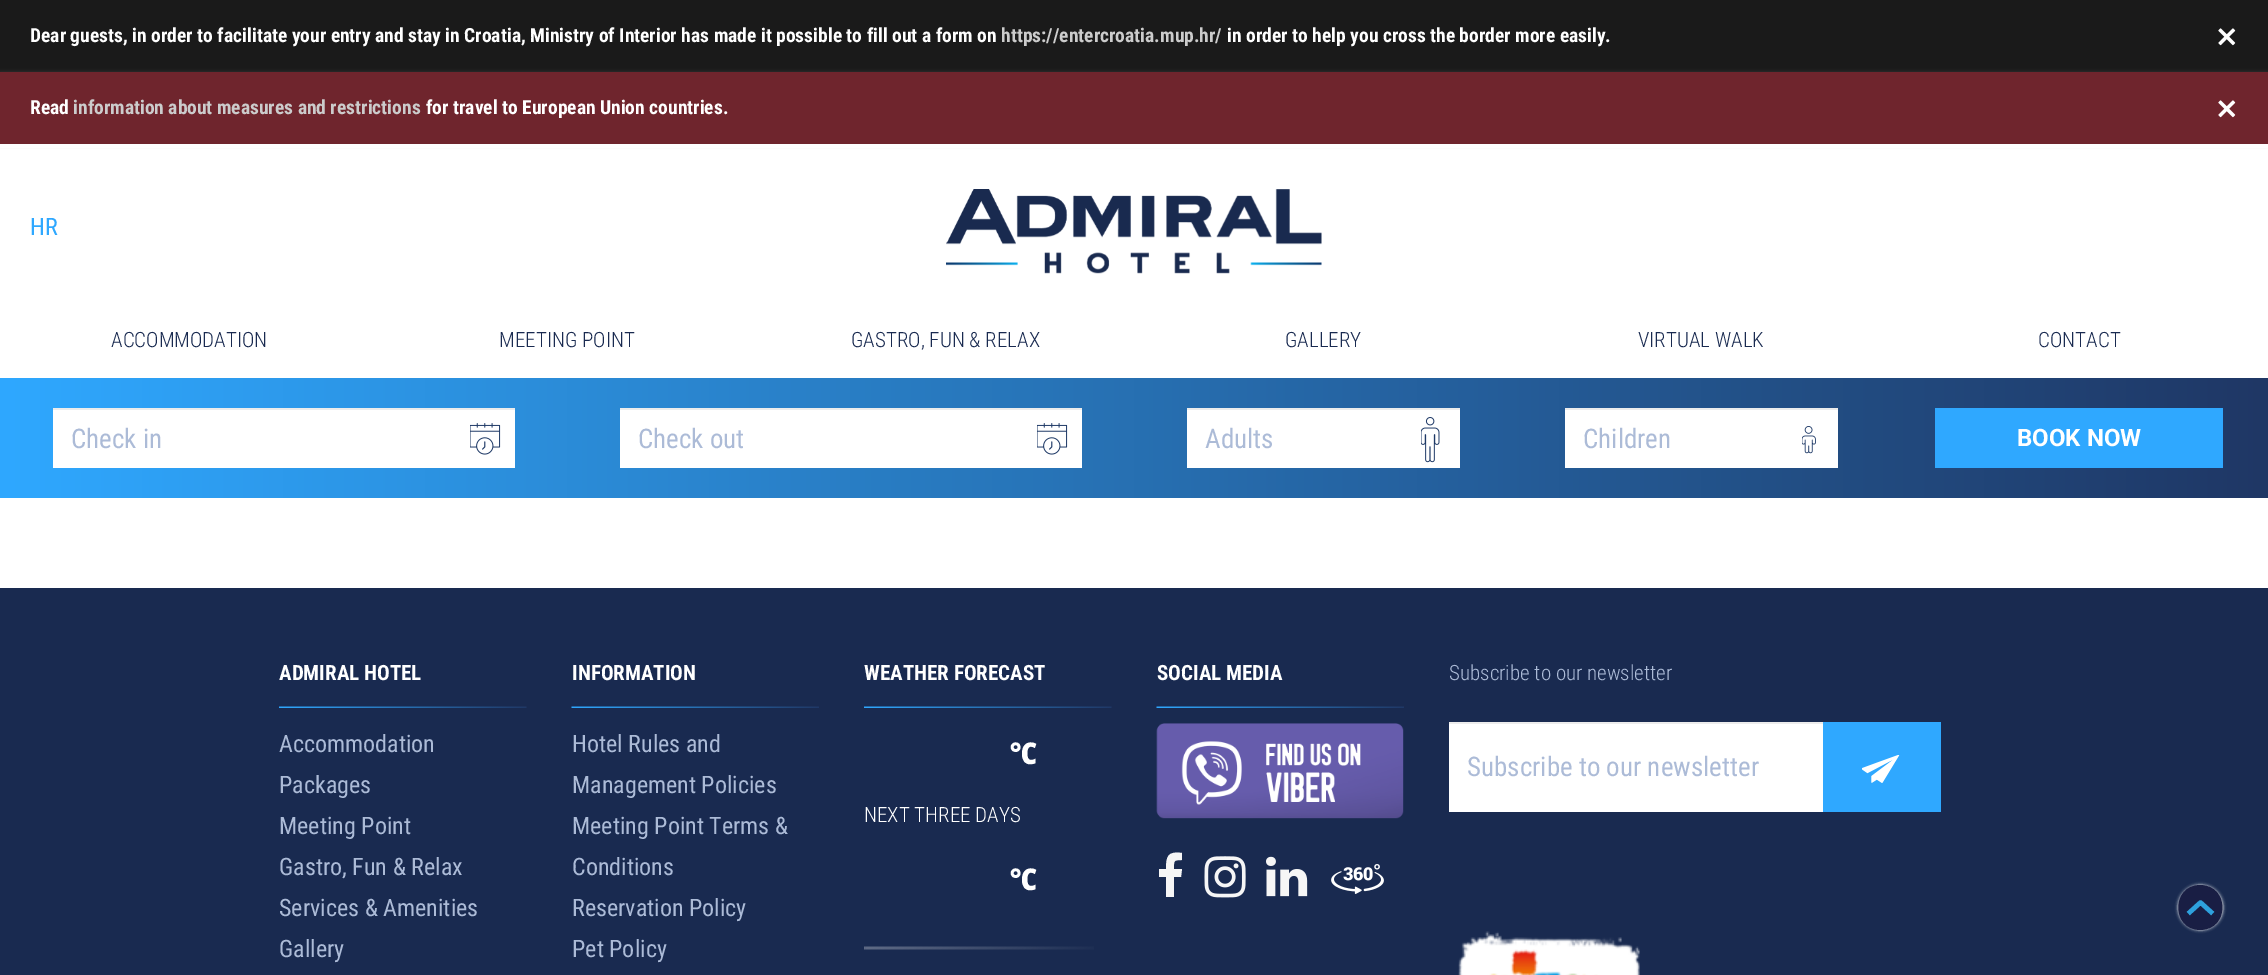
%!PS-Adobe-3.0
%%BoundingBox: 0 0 2268 975
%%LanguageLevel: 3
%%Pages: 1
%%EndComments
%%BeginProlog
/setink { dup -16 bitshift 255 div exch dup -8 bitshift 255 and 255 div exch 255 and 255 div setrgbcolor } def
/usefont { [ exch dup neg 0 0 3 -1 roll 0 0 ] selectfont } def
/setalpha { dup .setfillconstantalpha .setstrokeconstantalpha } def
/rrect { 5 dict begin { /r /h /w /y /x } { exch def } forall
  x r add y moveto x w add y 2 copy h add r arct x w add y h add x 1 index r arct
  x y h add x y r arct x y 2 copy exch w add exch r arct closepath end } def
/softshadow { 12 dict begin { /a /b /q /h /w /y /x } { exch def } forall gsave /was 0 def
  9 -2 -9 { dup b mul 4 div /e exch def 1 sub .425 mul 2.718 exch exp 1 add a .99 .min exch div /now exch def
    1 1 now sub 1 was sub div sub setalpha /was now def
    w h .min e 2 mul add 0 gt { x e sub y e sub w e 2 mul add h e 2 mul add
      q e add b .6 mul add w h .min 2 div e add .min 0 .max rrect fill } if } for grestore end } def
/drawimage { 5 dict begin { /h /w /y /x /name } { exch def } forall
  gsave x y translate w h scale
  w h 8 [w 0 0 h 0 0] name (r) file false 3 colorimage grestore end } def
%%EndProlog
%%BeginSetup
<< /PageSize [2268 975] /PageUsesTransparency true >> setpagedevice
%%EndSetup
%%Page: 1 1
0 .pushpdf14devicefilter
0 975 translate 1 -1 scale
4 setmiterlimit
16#FFFFFF setink
0 0 2268 975 rectfill
16#1A1A1A setink
0 0 2268 72 rectfill
/RobotoCondensed-Bold 19.5 usefont
16#FFFFFF setink
30 42 moveto (Dear guests, in order to facilitate your entry and stay in Croatia, Ministry of Interior has made it possible to fill out a form on) show
16#CCCCCC setink
1001 42 moveto (https://entercroatia.mup.hr/) show
16#FFFFFF setink
1227 42 moveto (in order to help you cross the border more easily.) show
(img1.raw) 2218 28 18 18 drawimage
16#333333 setink
0 72 2268 72 0 2 1 softshadow
16#6F252D setink
0 72 2268 72 rectfill
16#FFFFFF setink
30 114 moveto (Read) show
16#CCCCCC setink
73 114 moveto (information about measures and restrictions) show
16#FFFFFF setink
426 114 moveto (for travel to European Union countries.) show
(img2.raw) 2218 100 18 18 drawimage
0 144 2268 4 rectfill
/RobotoCondensed-Regular 24 usefont
16#2FA8FF setink
30 235 moveto (HR) show
(img3.raw) 946 189 376 85 drawimage
/RobotoCondensed-Light 21 usefont
16#192A50 setink
[
    [(ACCOMMODATION) 111 347]
    [(MEETING POINT) 499 347]
    [(GASTRO, FUN & RELAX) 851 347]
    [(GALLERY) 1285 347]
    [(VIRTUAL WALK) 1638 347]
    [(CONTACT) 2038 347]
] { aload pop moveto show } forall
gsave 0 378 moveto 2268 378 lineto 2268 498 lineto 0 498 lineto closepath clip newpath
<< /ShadingType 2 /ColorSpace /DeviceRGB /Coords [0 438 2268 438] /Extend [true true] /Function << /FunctionType 2 /Domain [0 1] /C0 [0.184 0.659 1] /C1 [0.122 0.216 0.396] /N 1 >> >> shfill grestore
16#FFFFFF setink
53 410 462 58 rectfill
16#ECECEC setink
53 408 462 2 rectfill
/RobotoCondensed-Regular 27 usefont
16#ACBBD7 setink
71 448 moveto (Check in) show
(img4.raw) 470 423 31 32 drawimage
16#FFFFFF setink
620 410 462 58 rectfill
16#ECECEC setink
620 408 462 2 rectfill
16#ACBBD7 setink
638 448 moveto (Check out) show
(img4.raw) 1037 423 31 32 drawimage
16#FFFFFF setink
1187 410 273 58 rectfill
16#ECECEC setink
1187 408 273 2 rectfill
16#ACBBD7 setink
1205 448 moveto (Adults) show
(img5.raw) 1421 417 19 46 drawimage
16#FFFFFF setink
1565 410 273 58 rectfill
16#ECECEC setink
1565 408 273 2 rectfill
16#ACBBD7 setink
1583 448 moveto (Children) show
(img6.raw) 1802 426 14 28 drawimage
16#2FA8FF setink
1935 408 288 60 rectfill
/Roboto-Bold 24 usefont
16#FFFFFF setink
2017 446 moveto (BOOK NOW) show
16#192A50 setink
0 588 2268 387 rectfill
(img7.raw) 279 706 248 2 drawimage
/RobotoCondensed-Bold 21 usefont
16#FFFFFF setink
279 680 moveto (ADMIRAL HOTEL) show
/RobotoCondensed-Regular 24 usefont
16#ACBBD7 setink
[
    [(Accommodation) 279 752]
    [(Packages) 279 793]
    [(Meeting Point) 279 834]
    [(Gastro, Fun & Relax) 279 875]
    [(Services & Amenities) 279 916]
    [(Gallery) 279 957]
] { aload pop moveto show } forall
(img8.raw) 571 706 248 2 drawimage
/RobotoCondensed-Bold 21 usefont
16#FFFFFF setink
572 680 moveto (INFORMATION) show
/RobotoCondensed-Regular 24 usefont
16#ACBBD7 setink
[
    [(Hotel Rules and) 572 752]
    [(Management Policies) 572 793]
    [(Meeting Point Terms &) 572 834]
    [(Conditions) 572 875]
    [(Reservation Policy) 572 916]
    [(Pet Policy) 572 957]
] { aload pop moveto show } forall
(img9.raw) 864 706 248 2 drawimage
/RobotoCondensed-Bold 21 usefont
16#FFFFFF setink
864 680 moveto (WEATHER FORECAST) show
/NotoSans-Black 30 usefont
1010 764 moveto (℃) show
/RobotoCondensed-Light 21 usefont
864 822 moveto (NEXT THREE DAYS) show
/NotoSans-Black 30 usefont
1010 890 moveto (℃) show
(img10.raw) 864 946 230 4 drawimage
(img11.raw) 1156 706 248 2 drawimage
/RobotoCondensed-Bold 21 usefont
1157 680 moveto (SOCIAL MEDIA) show
(img12.raw) 1156 723 248 96 drawimage
16#F6F6F6 setink
1182 853 moveto 1182 860 lineto 1173 860 1174 861 1174 869 curveto 1182 869 lineto 1181 877 lineto 1174 877 lineto 1174 897 lineto 1166 897 lineto 1166 877 lineto 1159 877 lineto 1159 869 lineto 1166 869 lineto 1166 856 1168 851 1182 853 curveto closepath fill
(img13.raw) 1204 856 42 42 drawimage
(img14.raw) 1266 856 42 41 drawimage
(img15.raw) 1331 864 53 30 drawimage
/RobotoCondensed-Light 21 usefont
16#ACBBD7 setink
1449 680 moveto (Subscribe to our newsletter) show
16#FFFFFF setink
1449 724 374 88 rectfill
16#ECECEC setink
1449 722 374 2 rectfill
/RobotoCondensed-Regular 27 usefont
16#ACBBD7 setink
1467 776 moveto (Subscribe to our newsletter) show
16#2FA8FF setink
1823 722 118 90 rectfill
(img16.raw) 1862 755 38 28 drawimage
(img17.raw) 1458 931 182 44 drawimage
16#FFFFFF setink
2178 885 45 45 22.5 1.5 1 softshadow
16#191E44 setink
2200 930 moveto 2171 930 2171 885 2200 885 curveto 2230 885 2230 930 2200 930 curveto closepath fill
16#2EA1DD setink
4.5 setlinewidth
2 setlinecap
1 setlinejoin
2190 912 moveto 2200.5 902.5 lineto 2211 912 lineto stroke
.poppdf14devicefilter showpage
%%EOF
